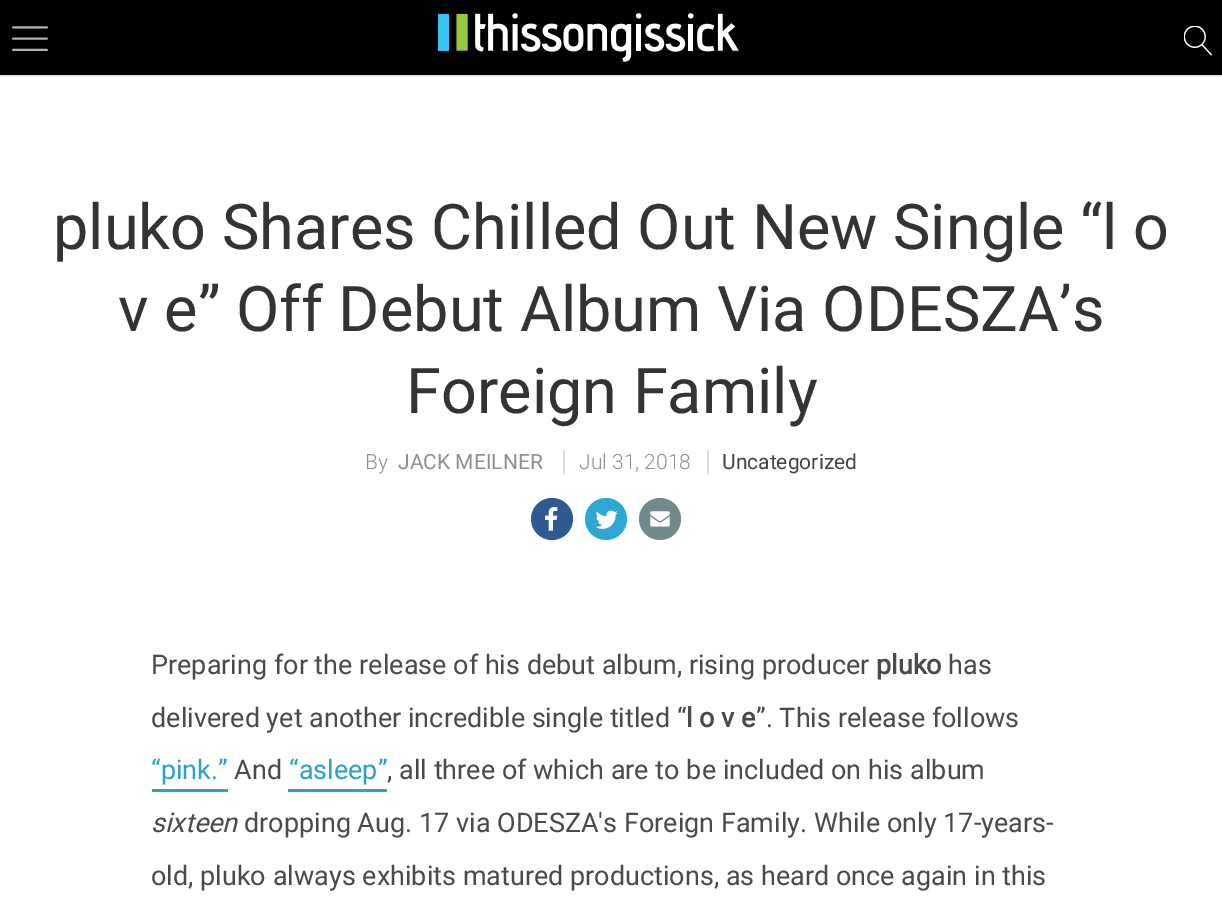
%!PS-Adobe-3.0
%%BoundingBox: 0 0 1222 920
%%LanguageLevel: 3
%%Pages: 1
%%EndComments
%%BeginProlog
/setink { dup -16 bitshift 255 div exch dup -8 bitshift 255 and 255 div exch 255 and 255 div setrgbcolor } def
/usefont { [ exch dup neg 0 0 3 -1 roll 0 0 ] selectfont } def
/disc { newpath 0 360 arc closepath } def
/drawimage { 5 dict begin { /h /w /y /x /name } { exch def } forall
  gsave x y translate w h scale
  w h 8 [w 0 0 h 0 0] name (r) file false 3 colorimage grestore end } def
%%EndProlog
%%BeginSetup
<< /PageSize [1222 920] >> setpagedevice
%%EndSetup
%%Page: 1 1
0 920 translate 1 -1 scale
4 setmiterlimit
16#FFFFFF setink
0 0 1222 920 rectfill
16#000000 setink
0 0 1222 75 rectfill
16#E7E7E7 setink
0 75 1222 2 rectfill
(img1.raw) 12 26 36 25 drawimage
(img2.raw) 438 13 301 49 drawimage
(img3.raw) 1184 26 28 30 drawimage
/Roboto-Regular 63 usefont
16#333333 setink
[
    [(pluko Shares Chilled Out New Single “l o) 53 249]
    [(v e” Off Debut Album Via ODESZA’s) 118 331]
    [(Foreign Family) 406 413]
] { aload pop moveto show } forall
/Roboto-Light 21 usefont
16#909090 setink
365 469 moveto (By) show
/Roboto-Regular 21 usefont
398 469 moveto (JACK MEILNER) show
16#DEDEDE setink
563 450 2 24 rectfill
/Roboto-Light 21 usefont
16#909090 setink
579 469 moveto (Jul 31, 2018) show
16#DEDEDE setink
707 450 2 24 rectfill
/Roboto-Regular 21 usefont
16#444444 setink
722 469 moveto (Uncategorized) show
16#305891 setink
552 519 21 disc fill
(img4.raw) 545 507 13 24 drawimage
16#2CA8D2 setink
606 519 21 disc fill
(img5.raw) 595 510 23 19 drawimage
16#738A8D setink
660 519 21 disc fill
(img6.raw) 650 511 20 16 drawimage
/Roboto-Regular 27 usefont
16#4A4A4A setink
151 674 moveto (Preparing for the release of his debut album, rising producer) show
/Roboto-Bold 27 usefont
876 674 moveto (pluko) show
/Roboto-Regular 27 usefont
948 674 moveto (has) show
151 727 moveto (delivered yet another incredible single titled “) show
/Roboto-Bold 27 usefont
686 727 moveto (l o v e) show
/Roboto-Regular 27 usefont
756 727 moveto (”. This release follows) show
16#2DA2C8 setink
151 779 moveto (“pink.”) show
152 789 76 3 rectfill
16#4A4A4A setink
234 779 moveto (And) show
16#2DA2C8 setink
289 779 moveto (“asleep”) show
288 789 99 3 rectfill
16#4A4A4A setink
387 779 moveto (, all three of which are to be included on his album) show
/Roboto-Italic 27 usefont
151 832 moveto (sixteen) show
/Roboto-Regular 27 usefont
244 832 moveto (dropping Aug. 17 via ODESZA's Foreign Family. While only 17-years-) show
151 885 moveto (old, pluko always exhibits matured productions, as heard once again in this) show
showpage
%%EOF
